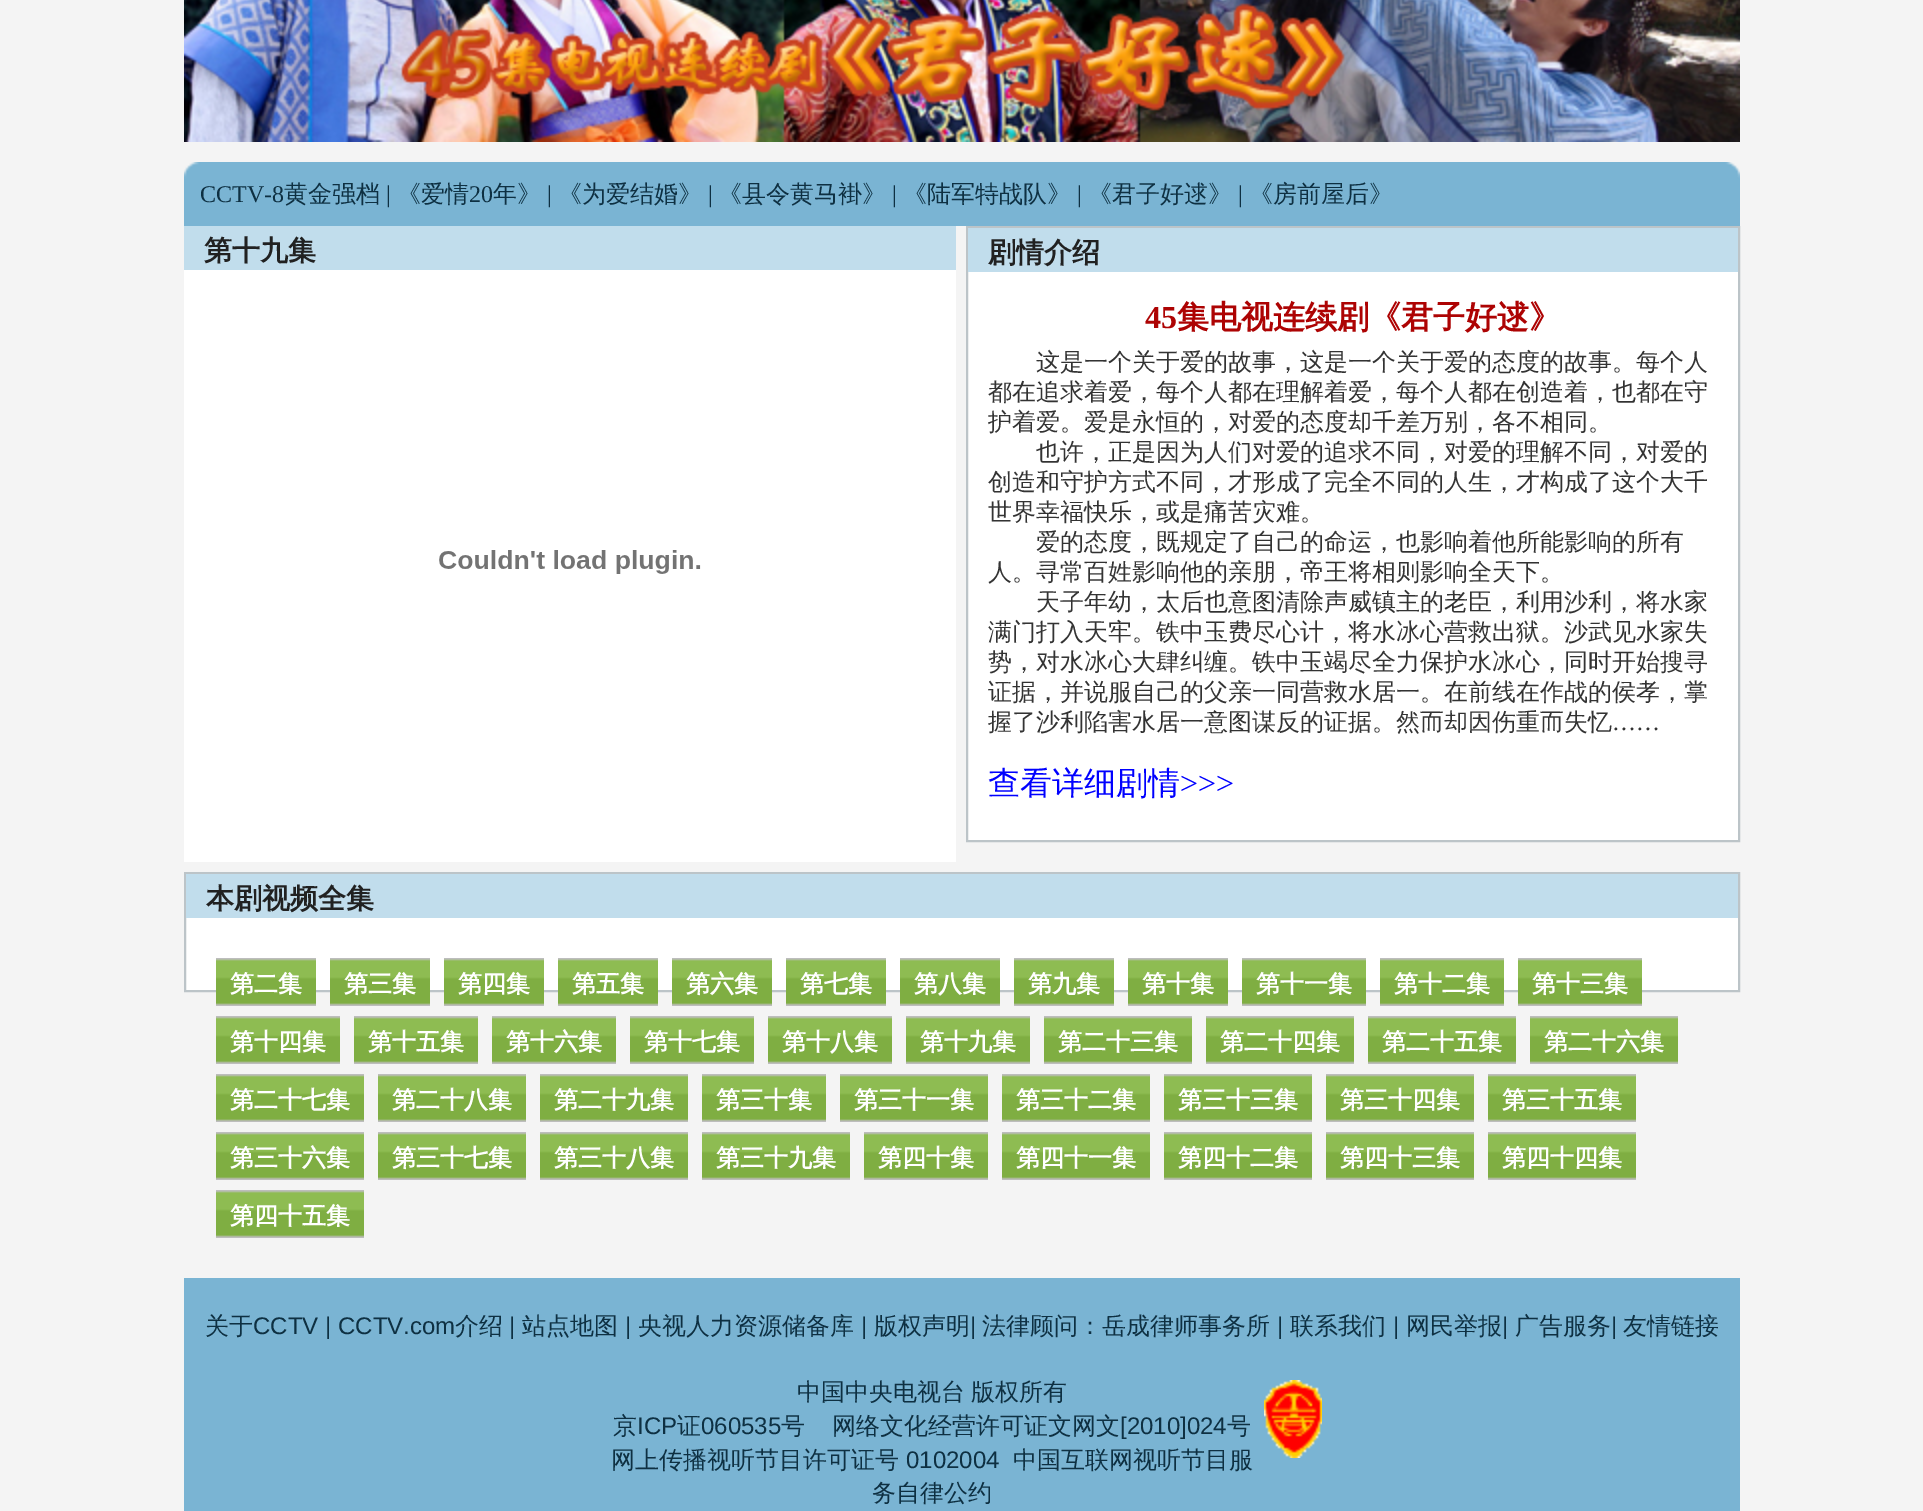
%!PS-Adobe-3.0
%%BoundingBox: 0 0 1923 1511
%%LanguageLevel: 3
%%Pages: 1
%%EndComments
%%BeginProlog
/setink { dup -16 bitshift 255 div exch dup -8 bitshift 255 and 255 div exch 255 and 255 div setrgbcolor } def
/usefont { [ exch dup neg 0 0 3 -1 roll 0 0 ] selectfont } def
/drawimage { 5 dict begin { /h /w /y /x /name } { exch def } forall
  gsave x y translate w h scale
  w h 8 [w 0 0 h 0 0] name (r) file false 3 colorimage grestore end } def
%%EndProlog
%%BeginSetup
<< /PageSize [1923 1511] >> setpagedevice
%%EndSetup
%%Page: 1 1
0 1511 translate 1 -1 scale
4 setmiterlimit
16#F4F4F4 setink
0 0 1923 1511 rectfill
(img1.raw) 184 0 1556 142 drawimage
(img2.raw) 184 162 1556 64 drawimage
/LiberationSerif-Regular 24 usefont
16#0E3042 setink
200 202 moveto (CCTV-8) show
/WenQuanYiZenHei-Medium 24 usefont
284 202 moveto (黄金强档) show
/LiberationSerif-Regular 24 usefont
386 202 moveto (|) show
/WenQuanYiZenHei-Medium 24 usefont
397 202 moveto (《爱情) show
/LiberationSerif-Regular 24 usefont
469 202 moveto (20) show
/WenQuanYiZenHei-Medium 24 usefont
493 202 moveto (年》) show
/LiberationSerif-Regular 24 usefont
547 202 moveto (|) show
/WenQuanYiZenHei-Medium 24 usefont
558 202 moveto (《为爱结婚》) show
/LiberationSerif-Regular 24 usefont
708 202 moveto (|) show
/WenQuanYiZenHei-Medium 24 usefont
718 202 moveto (《县令黄马褂》) show
/LiberationSerif-Regular 24 usefont
892 202 moveto (|) show
/WenQuanYiZenHei-Medium 24 usefont
903 202 moveto (《陆军特战队》) show
/LiberationSerif-Regular 24 usefont
1077 202 moveto (|) show
/WenQuanYiZenHei-Medium 24 usefont
1088 202 moveto (《君子好逑》) show
/LiberationSerif-Regular 24 usefont
1238 202 moveto (|) show
/WenQuanYiZenHei-Medium 24 usefont
1249 202 moveto (《房前屋后》) show
16#FFFFFF setink
184 270 772 592 rectfill
16#C1DDEC setink
184 226 772 44 rectfill
/WenQuanYiZenHei-Bold 28 usefont
16#212121 setink
204 260 moveto (第十九集) show
(img3.raw) 439 550 262 24 drawimage
16#FFFFFF setink
968 272 770 568 rectfill
16#BCC4C8 setink
2 setlinewidth
967 227 772 614 rectstroke
16#C1DDEC setink
968 228 770 44 rectfill
16#212121 setink
988 262 moveto (剧情介绍) show
/LiberationSerif-Bold 32 usefont
16#AD0303 setink
1145 328 moveto (45) show
/WenQuanYiZenHei-Bold 32 usefont
1177 328 moveto (集电视连续剧《君子好逑》) show
/WenQuanYiZenHei-Medium 24 usefont
16#333333 setink
[
    [(这是一个关于爱的故事，这是一个关于爱的态度的故事。每个人) 1036 370]
    [(都在追求着爱，每个人都在理解着爱，每个人都在创造着，也都在守) 988 400]
    [(护着爱。爱是永恒的，对爱的态度却千差万别，各不相同。) 988 430]
    [(也许，正是因为人们对爱的追求不同，对爱的理解不同，对爱的) 1036 460]
    [(创造和守护方式不同，才形成了完全不同的人生，才构成了这个大千) 988 490]
    [(世界幸福快乐，或是痛苦灾难。) 988 520]
    [(爱的态度，既规定了自己的命运，也影响着他所能影响的所有) 1036 550]
    [(人。寻常百姓影响他的亲朋，帝王将相则影响全天下。) 988 580]
    [(天子年幼，太后也意图清除声威镇主的老臣，利用沙利，将水家) 1036 610]
    [(满门打入天牢。铁中玉费尽心计，将水冰心营救出狱。沙武见水家失) 988 640]
    [(势，对水冰心大肆纠缠。铁中玉竭尽全力保护水冰心，同时开始搜寻) 988 670]
    [(证据，并说服自己的父亲一同营救水居一。在前线在作战的侯孝，掌) 988 700]
    [(握了沙利陷害水居一意图谋反的证据。然而却因伤重而失忆) 988 730]
] { aload pop moveto show } forall
/LiberationSerif-Regular 24 usefont
1612 730 moveto (……) show
/WenQuanYiZenHei-Medium 32 usefont
16#0000FF setink
988 794 moveto (查看详细剧情) show
/LiberationSerif-Regular 32 usefont
1180 794 moveto (>>>) show
16#FFFFFF setink
186 918 1552 72 rectfill
16#BCC4C8 setink
185 873 1554 118 rectstroke
16#C1DDEC setink
186 874 1552 44 rectfill
/WenQuanYiZenHei-Bold 28 usefont
16#212121 setink
206 908 moveto (本剧视频全集) show
(img4.raw) 216 958 100 48 drawimage
/WenQuanYiZenHei-Bold 24 usefont
16#FFFFFF setink
230 992 moveto (第二集) show
(img4.raw) 330 958 100 48 drawimage
344 992 moveto (第三集) show
(img4.raw) 444 958 100 48 drawimage
458 992 moveto (第四集) show
(img4.raw) 558 958 100 48 drawimage
572 992 moveto (第五集) show
(img4.raw) 672 958 100 48 drawimage
686 992 moveto (第六集) show
(img4.raw) 786 958 100 48 drawimage
800 992 moveto (第七集) show
(img4.raw) 900 958 100 48 drawimage
914 992 moveto (第八集) show
(img4.raw) 1014 958 100 48 drawimage
1028 992 moveto (第九集) show
(img4.raw) 1128 958 100 48 drawimage
1142 992 moveto (第十集) show
(img5.raw) 1242 958 124 48 drawimage
1256 992 moveto (第十一集) show
(img5.raw) 1380 958 124 48 drawimage
1394 992 moveto (第十二集) show
(img5.raw) 1518 958 124 48 drawimage
1532 992 moveto (第十三集) show
(img5.raw) 216 1016 124 48 drawimage
230 1050 moveto (第十四集) show
(img5.raw) 354 1016 124 48 drawimage
368 1050 moveto (第十五集) show
(img5.raw) 492 1016 124 48 drawimage
506 1050 moveto (第十六集) show
(img5.raw) 630 1016 124 48 drawimage
644 1050 moveto (第十七集) show
(img5.raw) 768 1016 124 48 drawimage
782 1050 moveto (第十八集) show
(img5.raw) 906 1016 124 48 drawimage
920 1050 moveto (第十九集) show
(img6.raw) 1044 1016 148 48 drawimage
1058 1050 moveto (第二十三集) show
(img6.raw) 1206 1016 148 48 drawimage
1220 1050 moveto (第二十四集) show
(img6.raw) 1368 1016 148 48 drawimage
1382 1050 moveto (第二十五集) show
(img6.raw) 1530 1016 148 48 drawimage
1544 1050 moveto (第二十六集) show
(img6.raw) 216 1074 148 48 drawimage
230 1108 moveto (第二十七集) show
(img6.raw) 378 1074 148 48 drawimage
392 1108 moveto (第二十八集) show
(img6.raw) 540 1074 148 48 drawimage
554 1108 moveto (第二十九集) show
(img5.raw) 702 1074 124 48 drawimage
716 1108 moveto (第三十集) show
(img6.raw) 840 1074 148 48 drawimage
854 1108 moveto (第三十一集) show
(img6.raw) 1002 1074 148 48 drawimage
1016 1108 moveto (第三十二集) show
(img6.raw) 1164 1074 148 48 drawimage
1178 1108 moveto (第三十三集) show
(img6.raw) 1326 1074 148 48 drawimage
1340 1108 moveto (第三十四集) show
(img6.raw) 1488 1074 148 48 drawimage
1502 1108 moveto (第三十五集) show
(img6.raw) 216 1132 148 48 drawimage
230 1166 moveto (第三十六集) show
(img6.raw) 378 1132 148 48 drawimage
392 1166 moveto (第三十七集) show
(img6.raw) 540 1132 148 48 drawimage
554 1166 moveto (第三十八集) show
(img6.raw) 702 1132 148 48 drawimage
716 1166 moveto (第三十九集) show
(img5.raw) 864 1132 124 48 drawimage
878 1166 moveto (第四十集) show
(img6.raw) 1002 1132 148 48 drawimage
1016 1166 moveto (第四十一集) show
(img6.raw) 1164 1132 148 48 drawimage
1178 1166 moveto (第四十二集) show
(img6.raw) 1326 1132 148 48 drawimage
1340 1166 moveto (第四十三集) show
(img6.raw) 1488 1132 148 48 drawimage
1502 1166 moveto (第四十四集) show
(img6.raw) 216 1190 148 48 drawimage
230 1224 moveto (第四十五集) show
16#7AB4D3 setink
184 1278 1556 233 rectfill
/WenQuanYiZenHei-Medium 24 usefont
16#0E3042 setink
205 1334 moveto (关于) show
/LiberationSans-Regular 24 usefont
253 1334 moveto (CCTV | CCTV.com) show
/WenQuanYiZenHei-Medium 24 usefont
455 1334 moveto (介绍) show
/LiberationSans-Regular 24 usefont
509 1334 moveto (|) show
/WenQuanYiZenHei-Medium 24 usefont
522 1334 moveto (站点地图) show
/LiberationSans-Regular 24 usefont
625 1334 moveto (|) show
/WenQuanYiZenHei-Medium 24 usefont
638 1334 moveto (央视人力资源储备库) show
/LiberationSans-Regular 24 usefont
861 1334 moveto (|) show
/WenQuanYiZenHei-Medium 24 usefont
874 1334 moveto (版权声明) show
/LiberationSans-Regular 24 usefont
970 1334 moveto (|) show
/WenQuanYiZenHei-Medium 24 usefont
982 1334 moveto (法律顾问：岳成律师事务所) show
/LiberationSans-Regular 24 usefont
1277 1334 moveto (|) show
/WenQuanYiZenHei-Medium 24 usefont
1290 1334 moveto (联系我们) show
/LiberationSans-Regular 24 usefont
1393 1334 moveto (|) show
/WenQuanYiZenHei-Medium 24 usefont
1406 1334 moveto (网民举报) show
/LiberationSans-Regular 24 usefont
1502 1334 moveto (|) show
/WenQuanYiZenHei-Medium 24 usefont
1515 1334 moveto (广告服务) show
/LiberationSans-Regular 24 usefont
1611 1334 moveto (|) show
/WenQuanYiZenHei-Medium 24 usefont
1623 1334 moveto (友情链接) show
797 1400 moveto -1 0 32 (中国中央电视台 版权所有) widthshow
613 1434 moveto (京) show
/LiberationSans-Regular 24 usefont
637 1434 moveto (ICP) show
/WenQuanYiZenHei-Medium 24 usefont
677 1434 moveto (证) show
/LiberationSans-Regular 24 usefont
701 1434 moveto (060535) show
/WenQuanYiZenHei-Medium 24 usefont
781 1434 moveto (号) show
832 1434 moveto (网络文化经营许可证文网文) show
/LiberationSans-Regular 24 usefont
1120 1434 moveto ([2010]024) show
/WenQuanYiZenHei-Medium 24 usefont
1227 1434 moveto (号) show
611 1468 moveto (网上传播视听节目许可证号) show
/LiberationSans-Regular 24 usefont
906 1468 moveto (0102004) show
/WenQuanYiZenHei-Medium 24 usefont
1013 1468 moveto (中国互联网视听节目服) show
872 1501 moveto (务自律公约) show
(img7.raw) 1264 1380 58 78 drawimage
showpage
%%EOF
